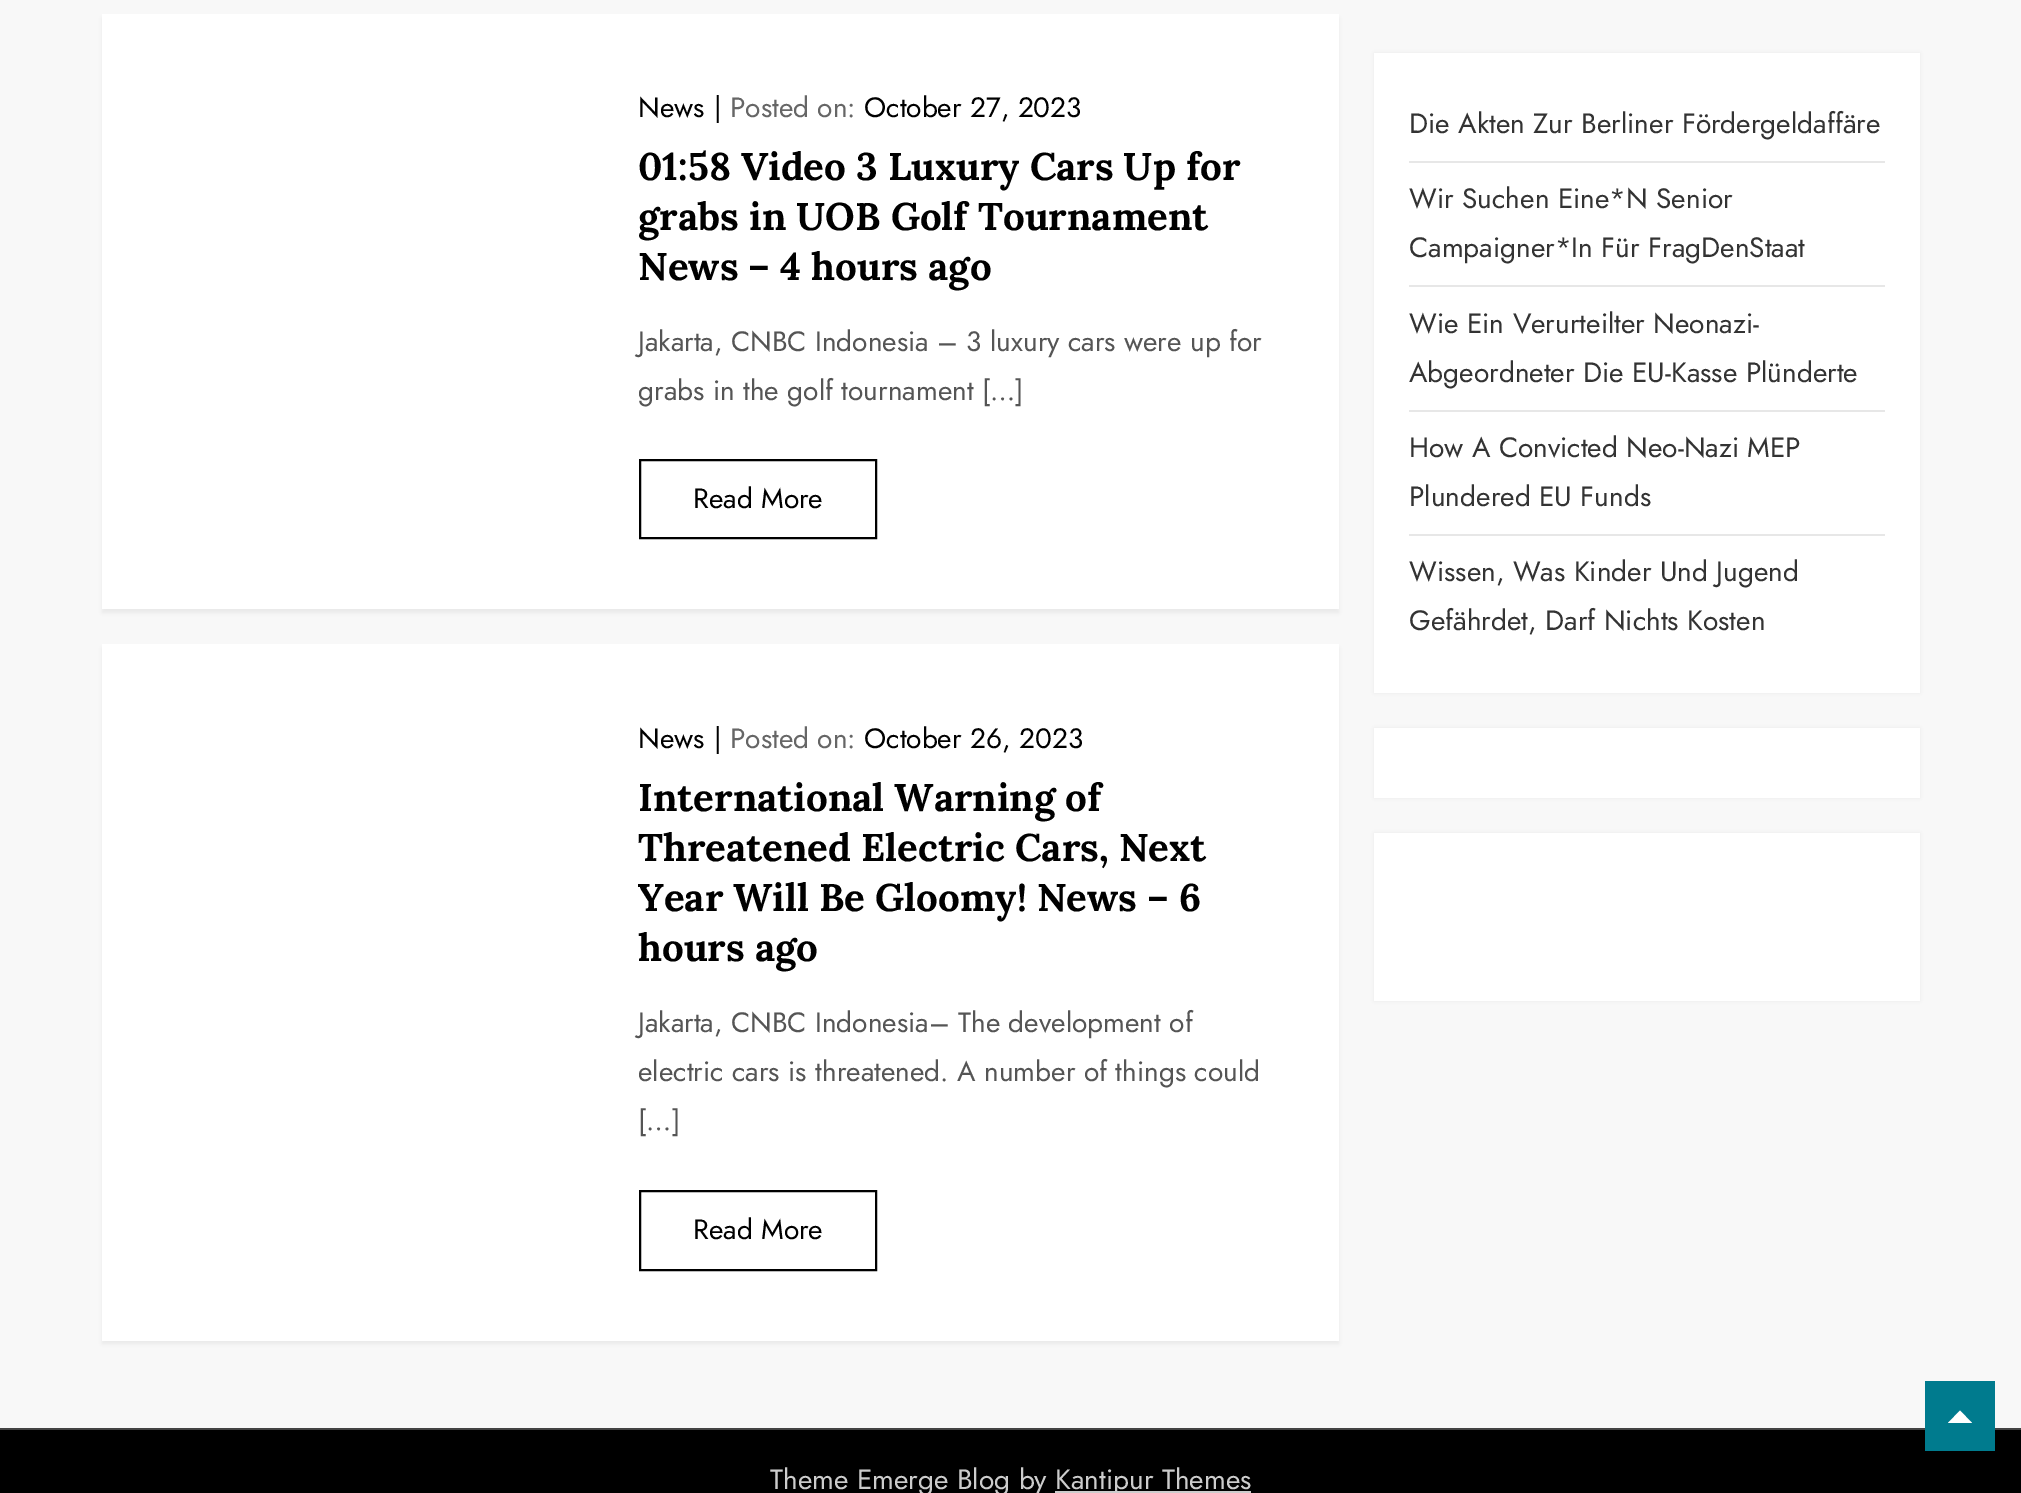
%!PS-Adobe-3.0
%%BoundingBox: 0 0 2021 1493
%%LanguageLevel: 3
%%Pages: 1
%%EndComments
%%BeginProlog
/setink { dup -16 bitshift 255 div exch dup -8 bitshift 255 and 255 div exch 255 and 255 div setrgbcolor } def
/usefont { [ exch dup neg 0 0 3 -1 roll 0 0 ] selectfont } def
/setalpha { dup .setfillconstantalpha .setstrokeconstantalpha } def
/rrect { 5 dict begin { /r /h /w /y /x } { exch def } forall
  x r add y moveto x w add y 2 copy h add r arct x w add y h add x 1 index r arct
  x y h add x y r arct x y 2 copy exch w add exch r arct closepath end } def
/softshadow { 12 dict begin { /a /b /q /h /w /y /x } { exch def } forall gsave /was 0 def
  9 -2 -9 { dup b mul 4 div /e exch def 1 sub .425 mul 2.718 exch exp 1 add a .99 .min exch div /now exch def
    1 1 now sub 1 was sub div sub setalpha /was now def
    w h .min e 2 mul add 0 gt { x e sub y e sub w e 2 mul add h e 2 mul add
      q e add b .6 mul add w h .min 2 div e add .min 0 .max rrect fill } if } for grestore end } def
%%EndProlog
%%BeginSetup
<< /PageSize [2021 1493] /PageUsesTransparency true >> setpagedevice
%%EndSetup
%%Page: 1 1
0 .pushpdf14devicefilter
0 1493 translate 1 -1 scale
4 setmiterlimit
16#F8F8F8 setink
0 0 2021 1493 rectfill
16#000000 setink
102 18 1237 595 0 2 0.06 softshadow
16#FFFFFF setink
102 14 1237 595 rectfill
/Jost-Regular 28 usefont
16#000000 setink
638 117 moveto (News) show
714 117 moveto (|) show
16#666666 setink
730 117 moveto (Posted on:) show
16#000000 setink
864 117 moveto (October 27, 2023) show
/Lora-Bold 38.5 usefont
[
    [(01:58 Video 3 Luxury Cars Up for) 638 180]
    [(grabs in UOB Golf Tournament) 638 230]
    [(News – 4 hours ago) 638 280]
] { aload pop moveto show } forall
/Jost-Regular 28 usefont
16#555555 setink
638 351 moveto (Jakarta, CNBC Indonesia – 3 luxury cars were up for) show
638 400 moveto (grabs in the golf tournament […]) show
16#000000 setink
2 setlinewidth
640 460 236 78 rectstroke
693 508 moveto (Read More) show
102 648 1237 696 0 2 0.06 softshadow
16#FFFFFF setink
102 644 1237 697 rectfill
16#000000 setink
638 748 moveto (News) show
714 748 moveto (|) show
16#666666 setink
730 748 moveto (Posted on:) show
16#000000 setink
864 748 moveto (October 26, 2023) show
/Lora-Bold 38.5 usefont
[
    [(International Warning of) 638 811]
    [(Threatened Electric Cars, Next) 638 861]
    [(Year Will Be Gloomy! News – 6) 638 911]
    [(hours ago) 638 961]
] { aload pop moveto show } forall
/Jost-Regular 28 usefont
16#555555 setink
[
    [(Jakarta, CNBC Indonesia– The development of) 638 1032]
    [(electric cars is threatened. A number of things could) 638 1081]
    [([…]) 638 1130]
] { aload pop moveto show } forall
16#000000 setink
640 1191 236 79 rectstroke
693 1239 moveto (Read More) show
1374 53 546 640 0 2 0.06 softshadow
16#FFFFFF setink
1374 53 546 640 rectfill
16#E7E7E7 setink
1409 161 476 2 rectfill
16#333333 setink
1409 133 moveto (Die Akten Zur Berliner Fördergeldaffäre) show
16#E7E7E7 setink
1409 285 476 2 rectfill
16#333333 setink
1409 208 moveto (Wir Suchen Eine*N Senior) show
1409 257 moveto (Campaigner*In Für FragDenStaat) show
16#E7E7E7 setink
1409 410 476 2 rectfill
16#333333 setink
1409 333 moveto (Wie Ein Verurteilter Neonazi-) show
1409 382 moveto (Abgeordneter Die EU-Kasse Plünderte) show
16#E7E7E7 setink
1409 534 476 2 rectfill
16#333333 setink
[
    [(How A Convicted Neo-Nazi MEP) 1409 457]
    [(Plundered EU Funds) 1409 506]
    [(Wissen, Was Kinder Und Jugend) 1409 581]
    [(Gefährdet, Darf Nichts Kosten) 1409 630]
] { aload pop moveto show } forall
16#000000 setink
1374 728 546 70 0 2 0.06 softshadow
16#FFFFFF setink
1374 728 546 70 rectfill
16#000000 setink
1374 833 546 168 0 2 0.06 softshadow
[
    [1374 833 546 168 16#FFFFFF]
    [0 1430 2021 63 16#000000]
    [0 1428 2021 2 16#444444]
    [1925 1381 70 70 16#007B8E]
] { aload pop setink rectfill } forall
16#FFFFFF setink
1972 1423 moveto 1948 1423 lineto 1960 1410.5 lineto closepath fill
16#CCCCCC setink
770 1489 moveto (Theme Emerge Blog by) show
1055 1491 196 2 rectfill
1055 1489 moveto (Kantipur Themes) show
.poppdf14devicefilter showpage
%%EOF
